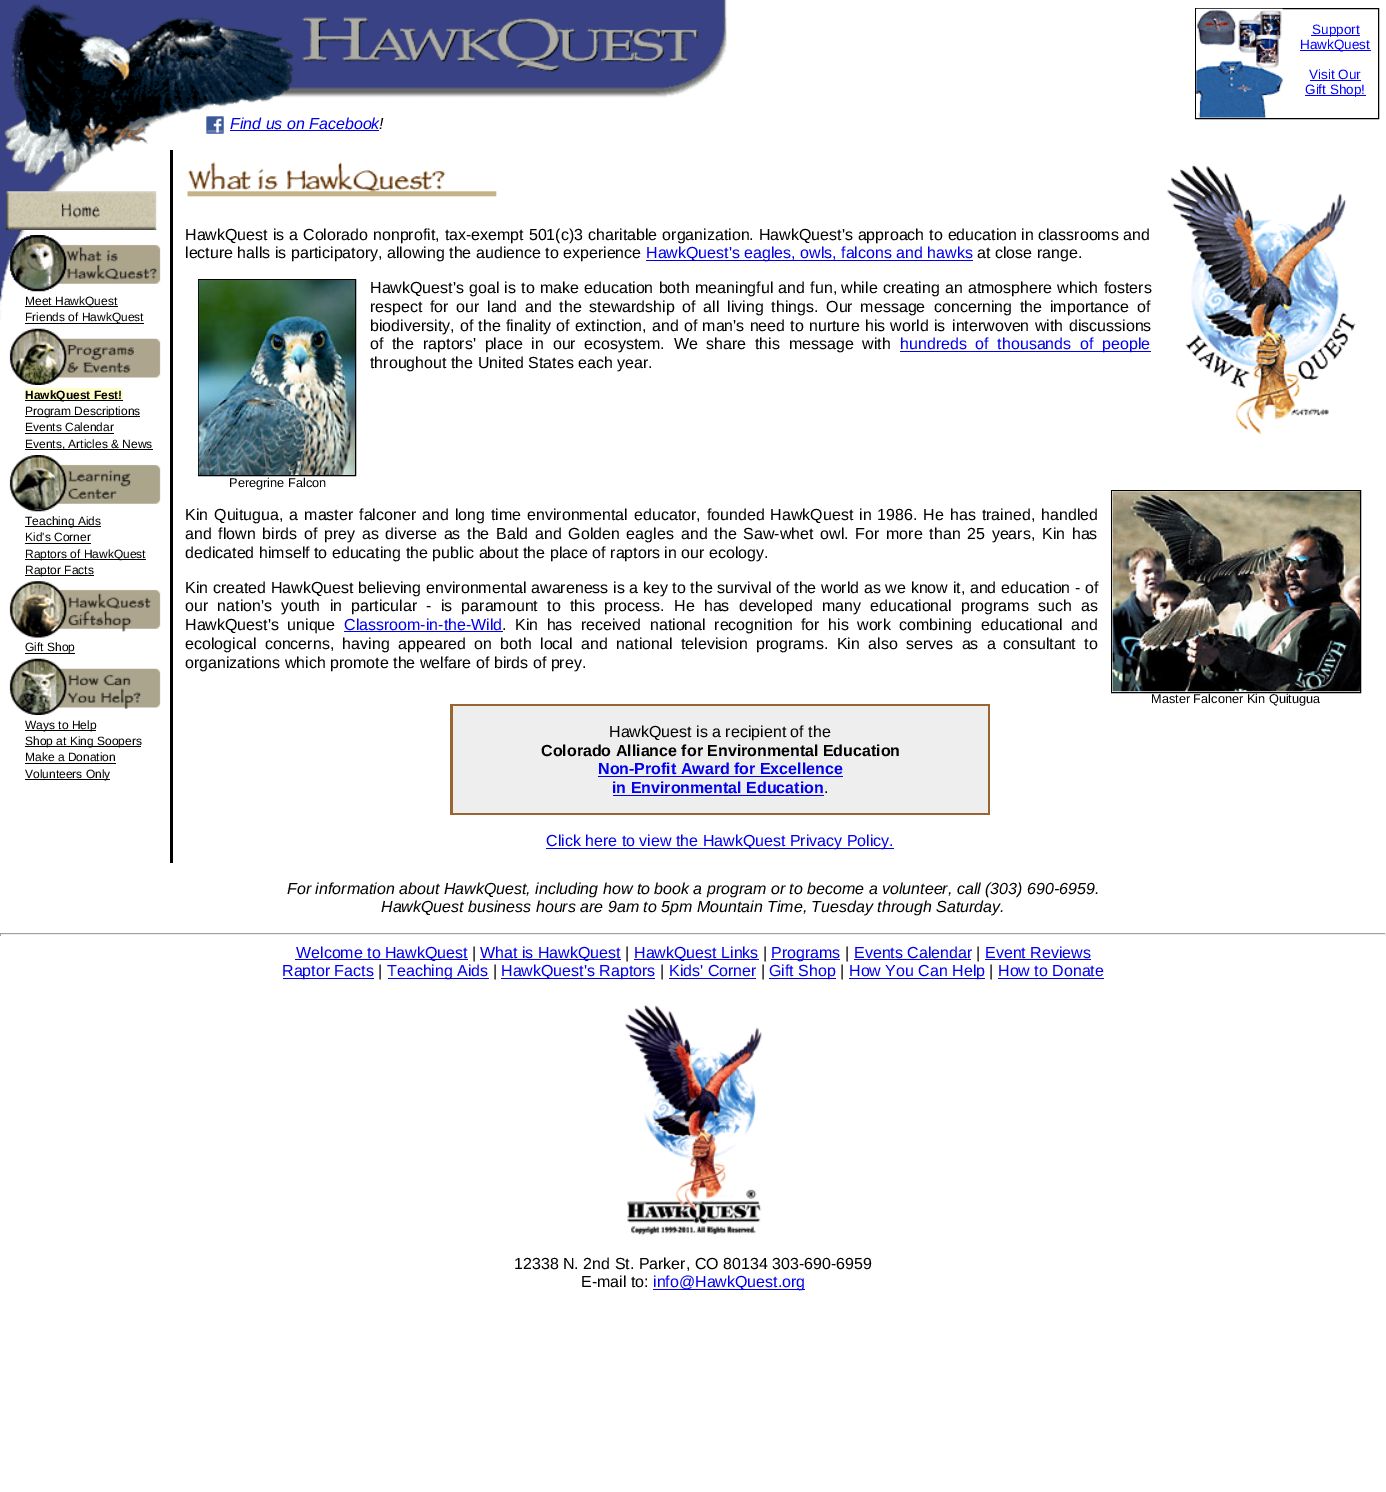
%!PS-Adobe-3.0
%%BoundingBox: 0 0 1386 1492
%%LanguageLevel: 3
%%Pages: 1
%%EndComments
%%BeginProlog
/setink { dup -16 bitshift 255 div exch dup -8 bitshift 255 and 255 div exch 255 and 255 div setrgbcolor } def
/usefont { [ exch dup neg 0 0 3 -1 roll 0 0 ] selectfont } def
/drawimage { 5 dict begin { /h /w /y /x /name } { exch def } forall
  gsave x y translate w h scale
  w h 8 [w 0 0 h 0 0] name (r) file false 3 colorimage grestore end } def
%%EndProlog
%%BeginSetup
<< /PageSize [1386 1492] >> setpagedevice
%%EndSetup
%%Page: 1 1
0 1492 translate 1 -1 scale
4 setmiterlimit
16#FFFFFF setink
0 0 1386 1492 rectfill
(img1.raw) 0 0 727 320 drawimage
16#000000 setink
1195.5 8.5 183 110 rectstroke
(img2.raw) 1196 8 87 110 drawimage
16#0000FF setink
1311 35 49 1 rectfill
/LiberationSans-Regular 13.5 usefont
1312 34 moveto (Support) show
1300 50 71 1 rectfill
1300 49 moveto (HawkQuest) show
1309 79 moveto (Visit Our) show
1310 80 51 1 rectfill
1305 95 61 1 rectfill
1305 94 moveto (Gift Shop!) show
(img3.raw) 206 116 18 18 drawimage
/LiberationSans-Italic 16 usefont
16#0000EE setink
230 129 moveto (Find us on Facebook) show
230 130 149 1 rectfill
16#000000 setink
379 129 moveto (!) show
(img4.raw) 6 191 151 39 drawimage
(img5.raw) 9 235 152 57 drawimage
25 306 93 1 rectfill
/LiberationSans-Regular 12 usefont
25 305 moveto (Meet HawkQuest) show
25 323 119 1 rectfill
25 321 moveto (Friends of HawkQuest) show
(img6.raw) 9 328 152 57 drawimage
16#FFFFCC setink
25 388 98 12 rectfill
16#000000 setink
25 400 98 1 rectfill
/LiberationSans-Bold 12 usefont
25 399 moveto (HawkQuest Fest!) show
25 416 115 1 rectfill
/LiberationSans-Regular 12 usefont
25 415 moveto (Program Descriptions) show
25 431 moveto (Events Calendar) show
25 433 89 1 rectfill
25 449 128 1 rectfill
25 448 moveto (Events, Articles & News) show
(img7.raw) 9 455 152 57 drawimage
25 526 76 1 rectfill
25 525 moveto (Teaching Aids) show
25 541 moveto (Kid's Corner) show
25 543 66 1 rectfill
25 559 121 1 rectfill
25 558 moveto (Raptors of HawkQuest) show
25 575 69 1 rectfill
25 574 moveto (Raptor Facts) show
(img8.raw) 9 581 152 57 drawimage
25 653 50 1 rectfill
25 651 moveto (Gift Shop) show
(img9.raw) 9 658 152 57 drawimage
25 730 71 1 rectfill
25 729 moveto (Ways to Help) show
25 746 116 1 rectfill
25 745 moveto (Shop at King Soopers) show
25 761 moveto (Make a Donation) show
25 763 91 1 rectfill
25 779 85 1 rectfill
25 778 moveto (Volunteers Only) show
170 150 3 713 rectfill
(img10.raw) 187 162 310 35 drawimage
(img11.raw) 1167 165 189 270 drawimage
/LiberationSans-Regular 16 usefont
185 240 moveto 0.5 0 32 (HawkQuest is a Colorado nonprofit, tax-exempt 501\(c\)3) widthshow
588 240 moveto 0.5 0 32 (charitable organization. HawkQuest's approach to education) widthshow
1021 240 moveto (in classrooms and) show
185 258 moveto (lecture halls is participatory, allowing the audience to experience) show
16#0000EE setink
646 260 327 1 rectfill
646 258 moveto (HawkQuest's eagles, owls, falcons and hawks) show
16#000000 setink
977 258 moveto (at close range.) show
370 293 moveto 0.75 0 32 (HawkQuest's goal is to make education both meaningful and fun,) widthshow
841 293 moveto 0.75 0 32 (while creating an atmosphere which fosters) widthshow
370 312 moveto 3 0 32 (respect for our) widthshow
487 312 moveto 3.25 0 32 (land and the stewardship of all living things. Our message) widthshow
934 312 moveto 3.25 0 32 (concerning the importance of) widthshow
370 331 moveto 0.75 0 32 (biodiversity, of the finality) widthshow
556 331 moveto 0.75 0 32 (of extinction, and of man's need to nurture his world is) widthshow
952 331 moveto 1 0 32 (interwoven with discussions) widthshow
370 349 moveto 4.25 0 32 (of the raptors' place in our) widthshow
584 349 moveto 4.25 0 32 (ecosystem. We share this message with) widthshow
16#0000EE setink
900 351 251 1 rectfill
900 349 moveto 4.25 0 32 (hundreds of thousands of people) widthshow
16#000000 setink
370 368 moveto (throughout the United States each year.) show
198.5 279.5 157 196 rectstroke
(img12.raw) 198 280 157 195 drawimage
/LiberationSans-Regular 12.75 usefont
229 487 moveto (Peregrine Falcon) show
/LiberationSans-Regular 16 usefont
185 520 moveto 1.5 0 32 (Kin Quitugua, a master falconer and long time environmental) widthshow
634 520 moveto 1.5 0 32 (educator, founded HawkQuest in 1986. He has trained, handled) widthshow
185 539 moveto 2.25 0 32 (and flown birds of prey as diverse as the Bald and Golden eagles) widthshow
681 539 moveto 2.25 0 32 (and the Saw-whet owl. For more than 25 years, Kin has) widthshow
185 558 moveto (dedicated himself to educating the public about the place of raptors in our ecology.) show
185 593 moveto 0.2 0 32 (Kin created HawkQuest believing environmental awareness is a key to the survival of the world as we know it, and education -) widthshow
1085 593 moveto (of) show
185 611 moveto 4.75 0 32 (our nation's youth in particular - is paramount to this) widthshow
604 611 moveto (process.) show
674 611 moveto 4.75 0 32 (He has developed many educational programs such as) widthshow
185 630 moveto 4 0 32 (HawkQuest's unique) widthshow
16#0000EE setink
344 630 moveto (Classroom-in-the-Wild) show
344 631 159 1 rectfill
16#000000 setink
502 630 moveto (.) show
515 630 moveto 4 0 32 (Kin has received national recognition for his work combining) widthshow
981 630 moveto 4 0 32 (educational and) widthshow
185 649 moveto 4 0 32 (ecological concerns, having appeared on both) widthshow
540 649 moveto 4 0 32 (local and national television programs. Kin also serves as a) widthshow
1003 649 moveto 4 0 32 (consultant to) widthshow
185 668 moveto (organizations which promote the welfare of birds of prey.) show
1111.5 490.5 249 202 rectstroke
(img13.raw) 1112 491 248 201 drawimage
/LiberationSans-Regular 12.75 usefont
1151 703 moveto (Master Falconer Kin Quitugua) show
16#996633 setink
450 704 540 111 rectfill
16#EEEEEE setink
453 706 535 107 rectfill
/LiberationSans-Regular 16 usefont
16#000000 setink
609 737 moveto (HawkQuest is a recipient of the) show
/LiberationSans-Bold 16 usefont
541 756 moveto (Colorado Alliance for Environmental Education) show
16#0000EE setink
598 774 moveto (Non-Profit Award for Excellence) show
598 776 245 1 rectfill
612 793 moveto (in Environmental Education) show
613 795 211 1 rectfill
/LiberationSans-Regular 16 usefont
16#000000 setink
824 793 moveto (.) show
16#0000EE setink
546 848 348 1 rectfill
546 846 moveto (Click here to view the HawkQuest Privacy Policy.) show
/LiberationSans-Italic 16 usefont
16#000000 setink
287 894 moveto (For information about HawkQuest, including how to book a program or to become a volunteer, call \(303\) 690-6959.) show
381 912 moveto (HawkQuest business hours are 9am to 5pm Mountain Time, Tuesday through Saturday.) show
[
    [0 933 1386 1 16#9F9F9F]
    [1385 933 1 3 16#EEEEEE]
    [0 934 1386 1 16#EEEEEE]
    [0 933 1 3 16#9F9F9F]
    [295 959 173 1 16#0000EE]
] { aload pop setink rectfill } forall
/LiberationSans-Regular 16 usefont
296 958 moveto (Welcome to HawkQuest) show
16#000000 setink
472 958 moveto (|) show
16#0000EE setink
480 959 141 1 rectfill
480 958 moveto (What is HawkQuest) show
16#000000 setink
625 958 moveto (|) show
16#0000EE setink
634 959 125 1 rectfill
634 958 moveto (HawkQuest Links) show
16#000000 setink
763 958 moveto (|) show
16#0000EE setink
771 959 69 1 rectfill
771 958 moveto (Programs) show
16#000000 setink
845 958 moveto (|) show
16#0000EE setink
854 958 moveto (Events Calendar) show
854 959 117 1 rectfill
16#000000 setink
976 958 moveto (|) show
16#0000EE setink
985 958 moveto (Event Reviews) show
985 959 106 1 rectfill
283 978 91 1 rectfill
282 976 moveto (Raptor Facts) show
16#000000 setink
378 976 moveto (|) show
16#0000EE setink
388 978 101 1 rectfill
387 976 moveto (Teaching Aids) show
16#000000 setink
493 976 moveto (|) show
16#0000EE setink
501 978 154 1 rectfill
501 976 moveto (HawkQuest's Raptors) show
16#000000 setink
660 976 moveto (|) show
16#0000EE setink
669 976 moveto (Kids' Corner) show
669 978 87 1 rectfill
16#000000 setink
761 976 moveto (|) show
16#0000EE setink
769 978 67 1 rectfill
769 976 moveto (Gift Shop) show
16#000000 setink
840 976 moveto (|) show
16#0000EE setink
849 978 136 1 rectfill
849 976 moveto (How You Can Help) show
16#000000 setink
989 976 moveto (|) show
16#0000EE setink
998 976 moveto (How to Donate) show
998 978 106 1 rectfill
(img14.raw) 625 1004 137 232 drawimage
16#000000 setink
514 1269 moveto (12338 N. 2nd St. Parker, CO 80134 303-690-6959) show
581 1287 moveto (E-mail to:) show
16#0000EE setink
653 1289 152 1 rectfill
653 1287 moveto (info@HawkQuest.org) show
showpage
%%EOF
